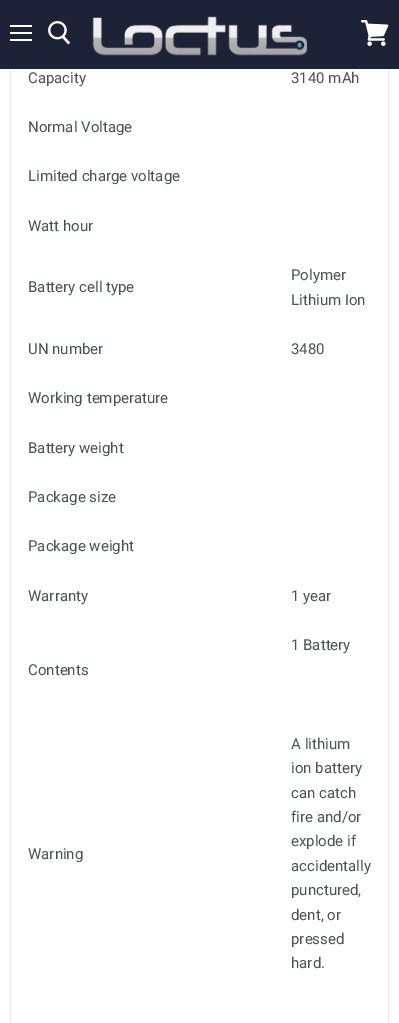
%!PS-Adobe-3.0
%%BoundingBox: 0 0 399 1023
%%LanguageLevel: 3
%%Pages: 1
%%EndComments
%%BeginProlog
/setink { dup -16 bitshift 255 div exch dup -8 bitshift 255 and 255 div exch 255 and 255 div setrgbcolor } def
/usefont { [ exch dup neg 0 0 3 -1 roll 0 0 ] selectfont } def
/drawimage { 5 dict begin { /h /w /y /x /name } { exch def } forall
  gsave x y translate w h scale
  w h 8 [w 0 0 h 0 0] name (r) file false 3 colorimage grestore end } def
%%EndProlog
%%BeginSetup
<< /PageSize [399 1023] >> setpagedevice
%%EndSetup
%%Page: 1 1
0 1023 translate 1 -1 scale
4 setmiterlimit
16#FFFFFF setink
0 0 399 1023 rectfill
16#EBEBEB setink
10.5 -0.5 378 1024 rectstroke
[
    [0 0 399 69 16#1D2236]
    [10 25 22 2 16#FFFFFF]
    [10 32 22 2 16#FFFFFF]
    [10 39 22 2 16#FFFFFF]
] { aload pop setink rectfill } forall
(img1.raw) 48 21 23 24 drawimage
(img2.raw) 92 16 216 40 drawimage
(img3.raw) 361 20 28 26 drawimage
/Roboto-Regular 15 usefont
16#4C5154 setink
[
    [(Capacity) 28 83]
    [(3140 mAh) 291 83]
    [(Normal Voltage) 28 132]
    [(Limited charge voltage) 28 181]
    [(Watt hour) 28 231]
    [(Battery cell type) 28 292]
    [(Polymer) 291 280]
    [(Lithium Ion) 291 305]
    [(UN number) 28 354]
    [(3480) 291 354]
    [(Working temperature) 28 403]
    [(Battery weight) 28 453]
    [(Package size) 28 502]
    [(Package weight) 28 551]
    [(Warranty) 28 601]
    [(1 year) 291 601]
    [(1 Battery) 291 650]
    [(Contents) 28 675]
    [(Warning) 28 859]
    [(A lithium) 291 749]
    [(ion battery) 291 773]
    [(can catch) 291 798]
    [(fire and/or) 291 822]
    [(explode if) 291 846]
    [(accidentally) 291 871]
    [(punctured,) 291 895]
    [(dent, or) 291 920]
    [(pressed) 291 944]
    [(hard.) 291 968]
] { aload pop moveto show } forall
showpage
%%EOF
